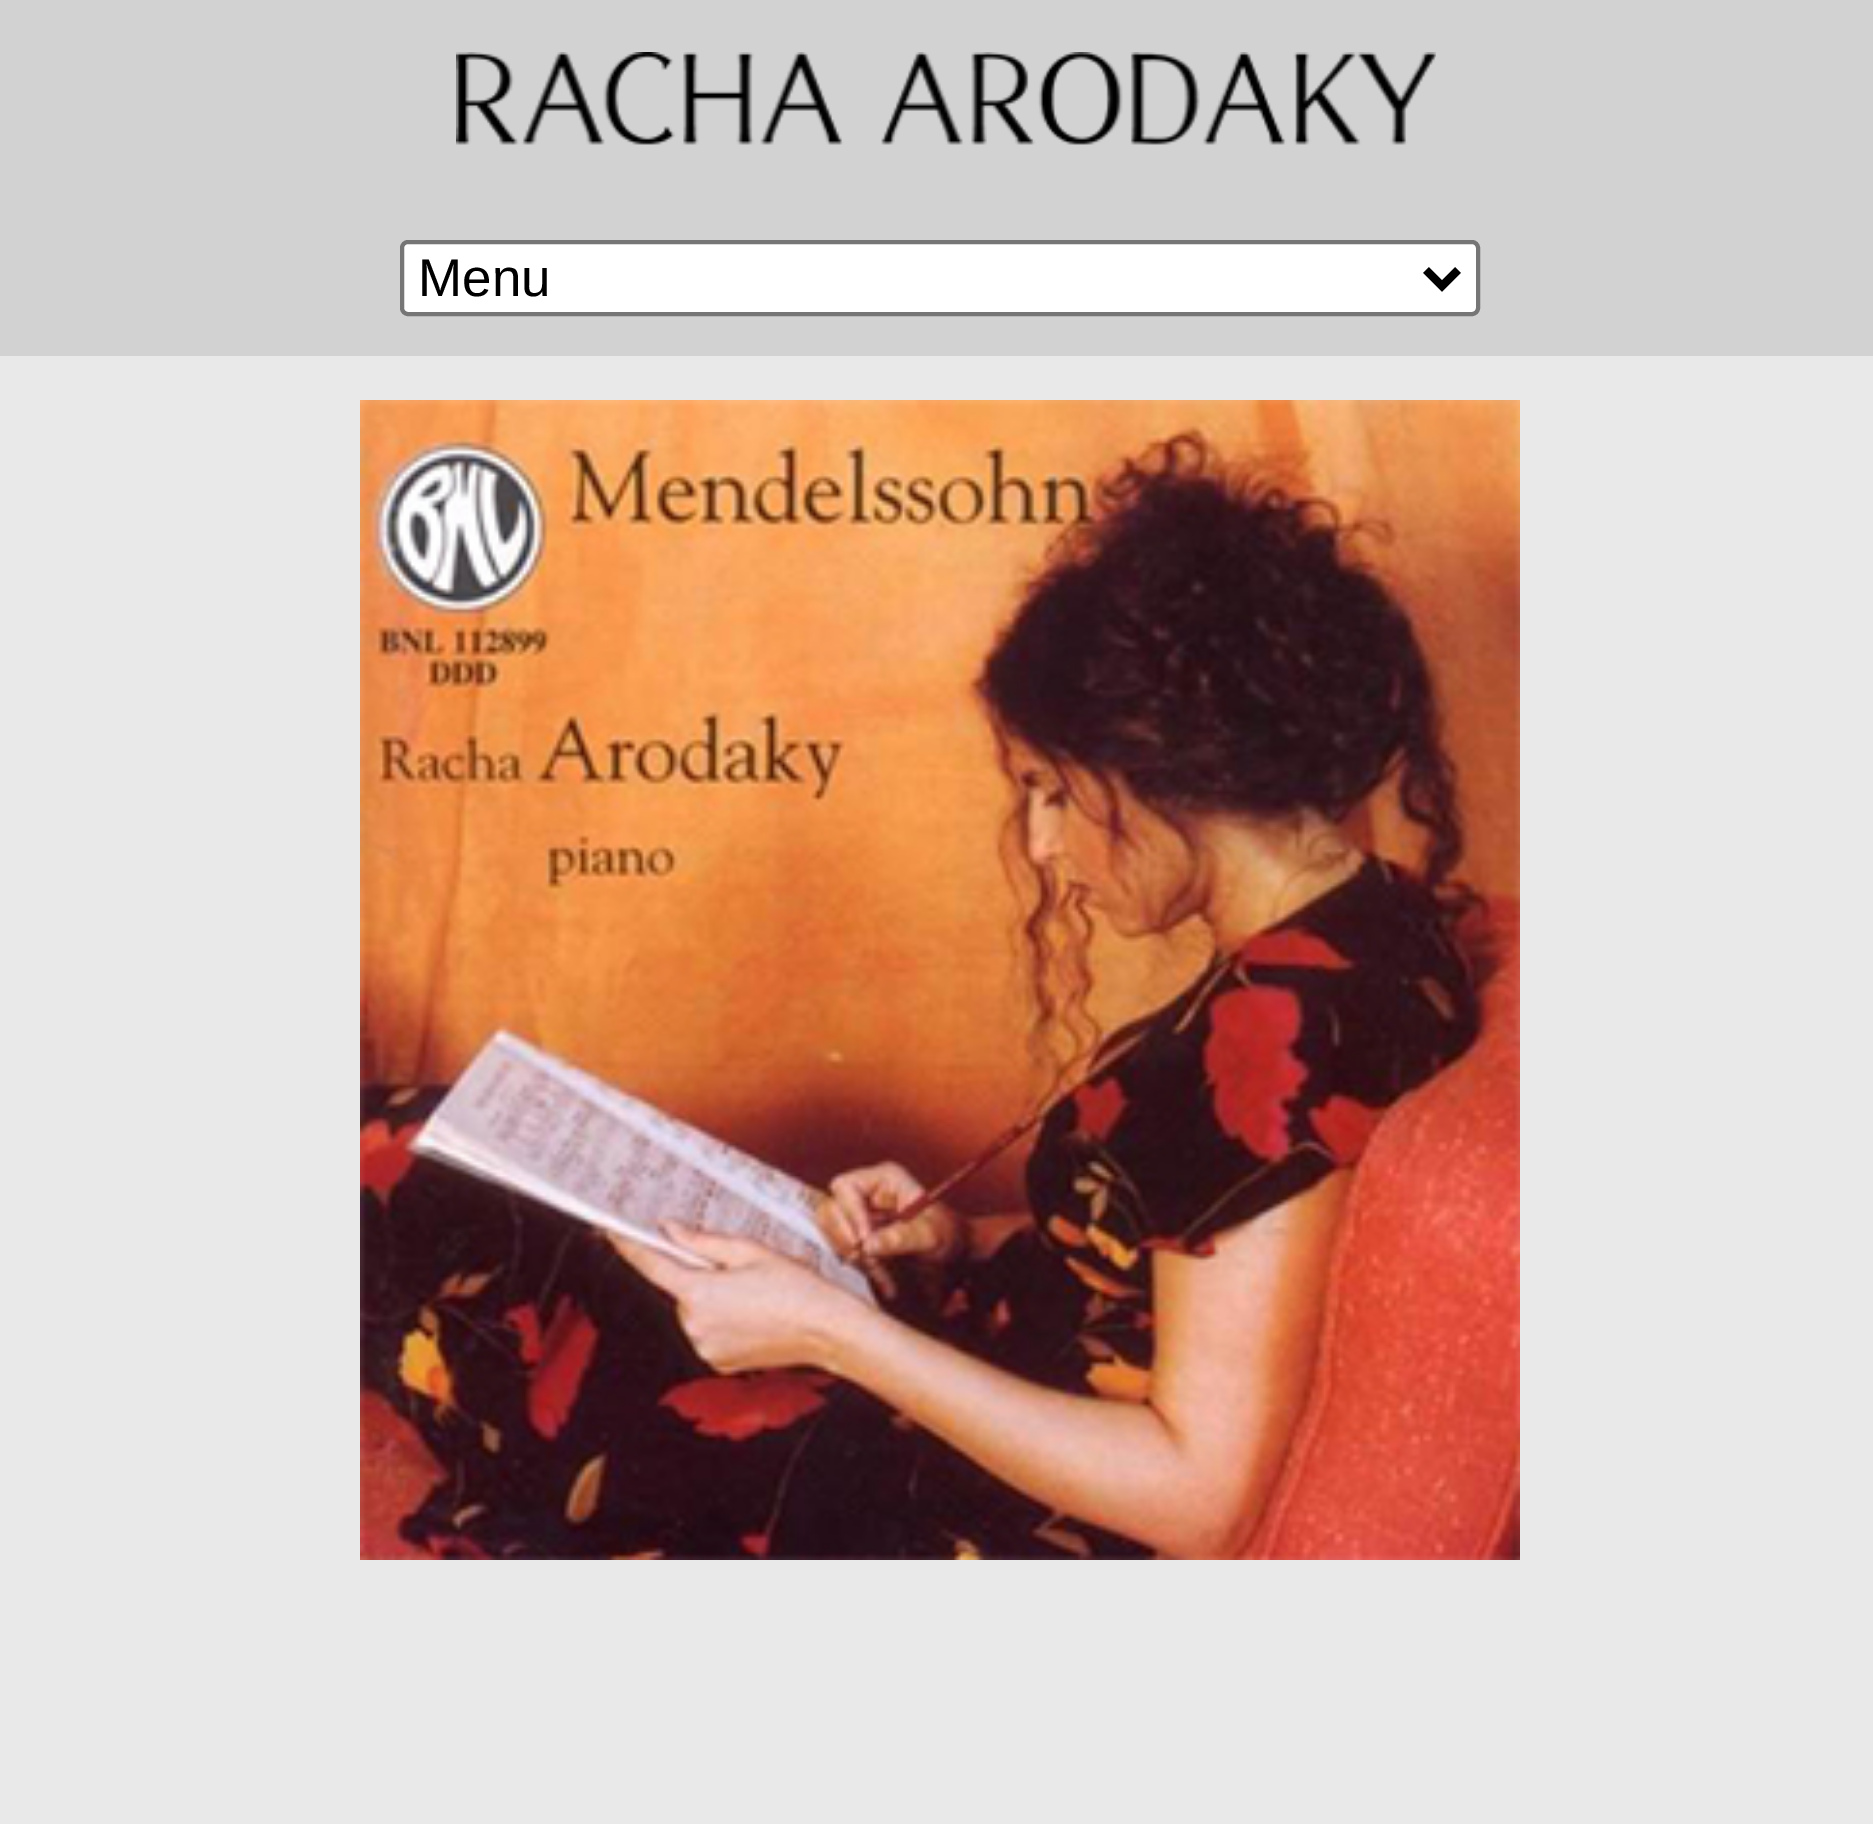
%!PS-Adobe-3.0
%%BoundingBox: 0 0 1873 1824
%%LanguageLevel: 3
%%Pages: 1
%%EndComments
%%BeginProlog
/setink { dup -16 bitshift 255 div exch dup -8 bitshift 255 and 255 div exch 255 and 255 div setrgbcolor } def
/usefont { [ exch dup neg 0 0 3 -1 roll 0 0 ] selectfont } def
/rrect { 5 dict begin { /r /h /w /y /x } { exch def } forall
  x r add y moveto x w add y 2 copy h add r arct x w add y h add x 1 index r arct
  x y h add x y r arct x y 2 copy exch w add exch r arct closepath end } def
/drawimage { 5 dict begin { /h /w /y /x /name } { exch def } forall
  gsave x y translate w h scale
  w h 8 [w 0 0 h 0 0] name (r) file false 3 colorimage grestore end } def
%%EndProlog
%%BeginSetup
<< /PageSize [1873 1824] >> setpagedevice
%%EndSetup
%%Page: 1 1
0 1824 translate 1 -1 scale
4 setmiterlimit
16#E9E9E9 setink
0 0 1873 1824 rectfill
16#D2D2D2 setink
0 0 1873 356 rectfill
(img1.raw) 456 52 980 93 drawimage
16#FFFFFF setink
402 242 1076 72 6 rrect gsave fill grestore
16#767676 setink
4 setlinewidth
stroke
16#000000 setink
8 setlinewidth
1426 270 moveto 1442 286 lineto 1458 270 lineto stroke
/LiberationSans-Regular 53 usefont
418 296 moveto (Menu) show
(img2.raw) 360 400 1160 1160 drawimage
showpage
%%EOF
